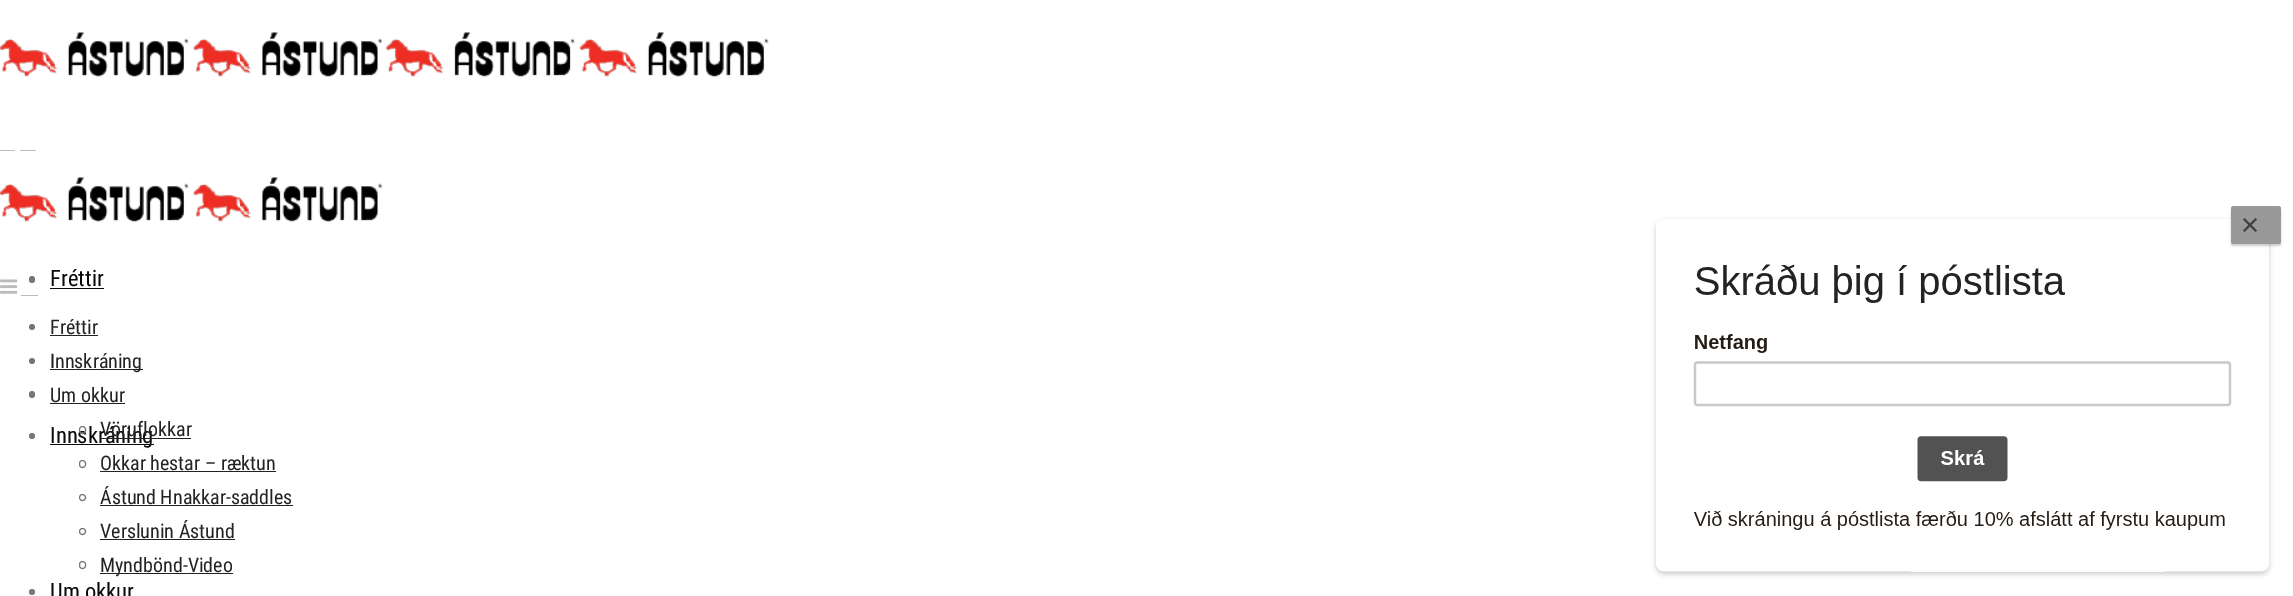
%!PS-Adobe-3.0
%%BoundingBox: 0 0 2293 596
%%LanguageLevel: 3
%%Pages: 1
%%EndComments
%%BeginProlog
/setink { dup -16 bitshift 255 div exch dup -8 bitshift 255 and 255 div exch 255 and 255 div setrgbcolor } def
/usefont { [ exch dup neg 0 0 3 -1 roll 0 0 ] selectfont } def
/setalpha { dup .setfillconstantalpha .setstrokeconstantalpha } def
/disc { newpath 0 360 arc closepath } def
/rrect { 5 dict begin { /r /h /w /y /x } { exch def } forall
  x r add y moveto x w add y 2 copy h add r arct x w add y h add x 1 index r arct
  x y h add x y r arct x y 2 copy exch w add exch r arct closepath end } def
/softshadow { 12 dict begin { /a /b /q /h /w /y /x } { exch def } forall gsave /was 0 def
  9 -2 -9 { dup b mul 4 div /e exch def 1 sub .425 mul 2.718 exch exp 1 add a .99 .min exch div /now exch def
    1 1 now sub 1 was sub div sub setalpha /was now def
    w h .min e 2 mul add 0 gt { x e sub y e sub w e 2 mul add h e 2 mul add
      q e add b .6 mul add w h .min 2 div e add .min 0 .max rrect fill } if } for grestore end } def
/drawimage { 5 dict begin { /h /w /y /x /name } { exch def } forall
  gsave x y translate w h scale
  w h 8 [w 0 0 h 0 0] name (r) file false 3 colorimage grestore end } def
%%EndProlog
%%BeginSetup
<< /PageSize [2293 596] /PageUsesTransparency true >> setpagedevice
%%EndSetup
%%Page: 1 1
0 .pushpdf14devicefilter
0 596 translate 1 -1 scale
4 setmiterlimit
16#FFFFFF setink
0 0 2293 596 rectfill
(img1.raw) 0 177 189 45 drawimage
(img2.raw) 193 177 190 45 drawimage
(img3.raw) 0 279 18 15 drawimage
16#BBBBBB setink
21 295 17 1 rectfill
(img1.raw) 0 32 189 45 drawimage
(img2.raw) 193 32 190 45 drawimage
(img4.raw) 386 32 189 45 drawimage
(img5.raw) 580 32 189 45 drawimage
0 150 15 1 rectfill
20 150 16 1 rectfill
16#777777 setink
29 276 6 7 3 rrect fill
/RobotoCondensed-Regular 22.5 usefont
16#0A0A0A setink
50 286 moveto (Fréttir) show
50 288 54 1 rectfill
16#777777 setink
32 436 3 disc fill
16#0A0A0A setink
50 444 104 1 rectfill
50 443 moveto (Innskráning) show
16#777777 setink
32 592 3 disc fill
16#0A0A0A setink
50 599 moveto (Um okkur) show
16#777777 setink
32 327 3 disc fill
/RobotoCondensed-Regular 20 usefont
16#232323 setink
50 334 moveto (Fréttir) show
50 335 48 1 rectfill
16#777777 setink
32 361 3 disc fill
16#232323 setink
50 369 93 1 rectfill
50 368 moveto (Innskráning) show
16#777777 setink
29 391 6 7 3 rrect fill
16#232323 setink
50 402 moveto (Um okkur) show
50 403 75 1 rectfill
16#777777 setink
79.5 426.5 6 7 3 rrect stroke
16#232323 setink
100 436 moveto (Vöruflokkar) show
100 438 91 1 rectfill
16#777777 setink
79.5 460.5 6 7 3 rrect stroke
16#232323 setink
100 470 moveto (Okkar hestar – ræktun) show
100 471 176 1 rectfill
16#777777 setink
82.5 497.5 3 disc stroke
16#232323 setink
100 504 moveto (Ástund Hnakkar-saddles) show
100 505 193 1 rectfill
16#777777 setink
82.5 531.5 3 disc stroke
16#232323 setink
100 538 moveto (Verslunin Ástund) show
100 539 135 1 rectfill
16#777777 setink
79.5 561.5 6 7 3 rrect stroke
16#232323 setink
100 573 133 1 rectfill
100 572 moveto (Myndbönd-Video) show
16#000000 setink
1656 221 613 353 8 2.5 0.2 softshadow
16#FFFFFF setink
1656 219 613 352 8 rrect fill
16#000000 setink
2231 209 50 37 2.5 1 0.2 softshadow
16#999999 setink
2231 206 50 38 2.5 rrect fill
16#414141 setink
2255.5 218 moveto 2257 219.5 lineto 2244.5 232 lineto 2243 230.5 lineto closepath fill
2243 219.5 moveto 2244.5 218 lineto 2257 230.5 lineto 2255.5 232 lineto closepath fill
(img6.raw) 1660 264 609 308 drawimage
.poppdf14devicefilter showpage
%%EOF
